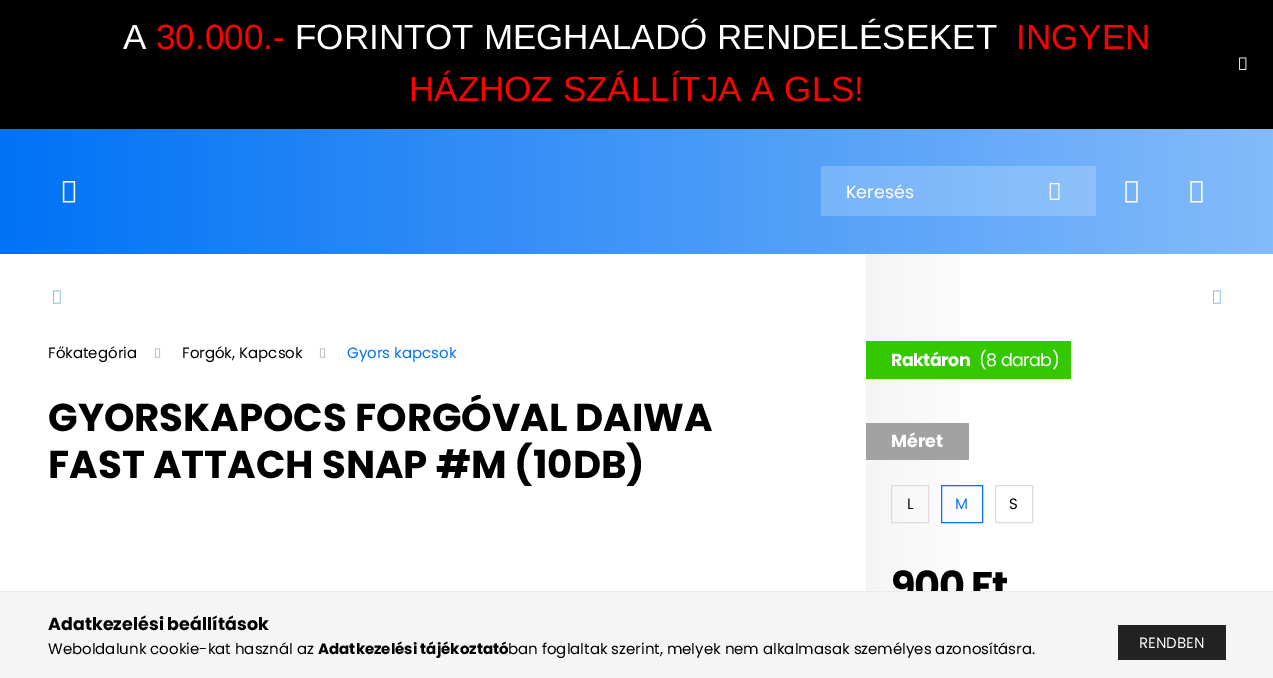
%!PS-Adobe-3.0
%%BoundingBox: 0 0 1273 678
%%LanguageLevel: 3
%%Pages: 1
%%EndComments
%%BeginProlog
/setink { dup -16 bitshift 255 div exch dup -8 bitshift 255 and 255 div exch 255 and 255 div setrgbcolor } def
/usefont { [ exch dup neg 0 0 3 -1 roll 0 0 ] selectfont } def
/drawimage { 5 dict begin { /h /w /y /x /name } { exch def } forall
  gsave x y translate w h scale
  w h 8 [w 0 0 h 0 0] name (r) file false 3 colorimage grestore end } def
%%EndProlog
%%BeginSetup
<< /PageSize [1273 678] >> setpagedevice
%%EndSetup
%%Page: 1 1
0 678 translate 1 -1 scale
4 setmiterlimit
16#FFFFFF setink
0 0 1273 678 rectfill
16#000000 setink
0 0 1273 129 rectfill
/LiberationSans-Regular 35 usefont
16#FFFFFF setink
123 49 moveto (A) show
16#FF0000 setink
156 49 moveto (30.000.-) show
16#FFFFFF setink
295 49 moveto (FORINTOT MEGHALADÓ RENDELÉSEKET) show
16#FF0000 setink
1016 49 moveto (INGYEN) show
409 101 moveto (HÁZHOZ SZÁLLÍTJA A GLS!) show
(img1.raw) 1239 57 8 13 drawimage
gsave 0 129 moveto 1273 129 lineto 1273 254 lineto 0 254 lineto closepath clip newpath
<< /ShadingType 2 /ColorSpace /DeviceRGB /Coords [0 191 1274 191] /Extend [true true] /Function << /FunctionType 2 /Domain [0 1] /C0 [0 0.447 0.961] /C1 [0.518 0.733 0.98] /N 1 >> >> shfill grestore
gsave 821 166 moveto 1096 166 lineto 1096 216 lineto 821 216 lineto closepath clip newpath
<< /ShadingType 2 /ColorSpace /DeviceRGB /Coords [0 191 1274 191] /Extend [true true] /Function << /FunctionType 2 /Domain [0 1] /C0 [0.2 0.557 0.969] /C1 [0.616 0.788 0.984] /N 1 >> >> shfill grestore
(img2.raw) 62 181 14 22 drawimage
/Poppins-Regular 17.5 usefont
16#FFFFFF setink
846 198 moveto (Keresés) show
(img3.raw) 1049 183 11 17 drawimage
(img4.raw) 1125 181 13 22 drawimage
(img5.raw) 1190 181 13 22 drawimage
(img6.raw) 53 290 8 14 drawimage
(img6.raw) 1213 290 8 14 drawimage
/Poppins-Regular 15 usefont
16#000000 setink
48 358 moveto (Főkategória) show
(img7.raw) 154 348 7 10 drawimage
182 358 moveto (Forgók, Kapcsok) show
(img7.raw) 319 348 7 10 drawimage
16#0072F5 setink
347 358 moveto (Gyors kapcsok) show
gsave
49 395 767 93 rectclip
/Poppins-Bold 38.75 usefont
16#000000 setink
48 431 moveto (GYORSKAPOCS FORGÓVAL DAIWA) show
grestore
/Poppins-Bold 38.75 usefont
16#000000 setink
48 478 moveto (FAST ATTACH SNAP #M \(10DB\)) show
gsave 866 254 moveto 960 254 lineto 960 591 lineto 866 591 lineto closepath clip newpath
<< /ShadingType 2 /ColorSpace /DeviceRGB /Coords [866 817 1225 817] /Extend [true true] /Function << /FunctionType 3 /Domain [0 1] /Functions [<< /FunctionType 2 /Domain [0 1] /C0 [0.961 0.961 0.961] /C1 [1 1 1] /N 1 >> << /FunctionType 2 /Domain [0 1] /C0 [1 1 1] /C1 [1 1 1] /N 1 >>] /Bounds [0.35] /Encode [0 1 0 1] >> >> shfill grestore
16#34C800 setink
866 341 205 38 rectfill
/Poppins-Bold 17.5 usefont
16#FFFFFF setink
891 366 moveto -0.6 0 (Raktáron) ashow
/Poppins-Regular 17.5 usefont
979 366 moveto -0.6 0 (\(8 darab\)) ashow
16#A2A2A2 setink
866 423 103 37 rectfill
/Poppins-Bold 17.5 usefont
16#FFFFFF setink
891 447 moveto (Méret) show
16#DDDDDD setink
891.5 485.5 37 37 rectstroke
/Poppins-Regular 15 usefont
16#000000 setink
907 509 moveto (L) show
16#0072F5 setink
941.5 485.5 41 37 rectstroke
955 509 moveto (M) show
16#DDDDDD setink
995.5 485.5 37 37 rectstroke
16#000000 setink
1009 509 moveto (S) show
/Poppins-Bold 40 usefont
891 600 moveto -1.25 0 (900 Ft) ashow
16#F5F5F5 setink
0 592 1273 86 rectfill
16#EAEAEA setink
0 591 1273 1 rectfill
/Poppins-Bold 17.5 usefont
16#000000 setink
48 630 moveto (Adatkezelési beállítások) show
/Poppins-Regular 15 usefont
48 654 moveto (Weboldalunk cookie-kat használ az) show
/Poppins-Bold 15 usefont
318 654 moveto (Adatkezelési tájékoztató) show
/Poppins-Regular 15 usefont
508 654 moveto (ban foglaltak szerint, melyek nem alkalmasak személyes azonosításra.) show
gsave 1118 625 moveto 1226 625 lineto 1226 660 lineto 1118 660 lineto closepath clip newpath
<< /ShadingType 2 /ColorSpace /DeviceRGB /Coords [900 643 1226 643] /Extend [true true] /Function << /FunctionType 3 /Domain [0 1] /Functions [<< /FunctionType 2 /Domain [0 1] /C0 [0 0.447 0.961] /C1 [0.518 0.733 0.98] /N 1 >> << /FunctionType 2 /Domain [0 1] /C0 [0.518 0.733 0.98] /C1 [0.133 0.133 0.133] /N 1 >> << /FunctionType 2 /Domain [0 1] /C0 [0.133 0.133 0.133] /C1 [0.133 0.133 0.133] /N 1 >>] /Bounds [0.33 0.67] /Encode [0 1 0 1 0 1] >> >> shfill grestore
16#FFFFFF setink
1139 648 moveto (RENDBEN) show
showpage
%%EOF
